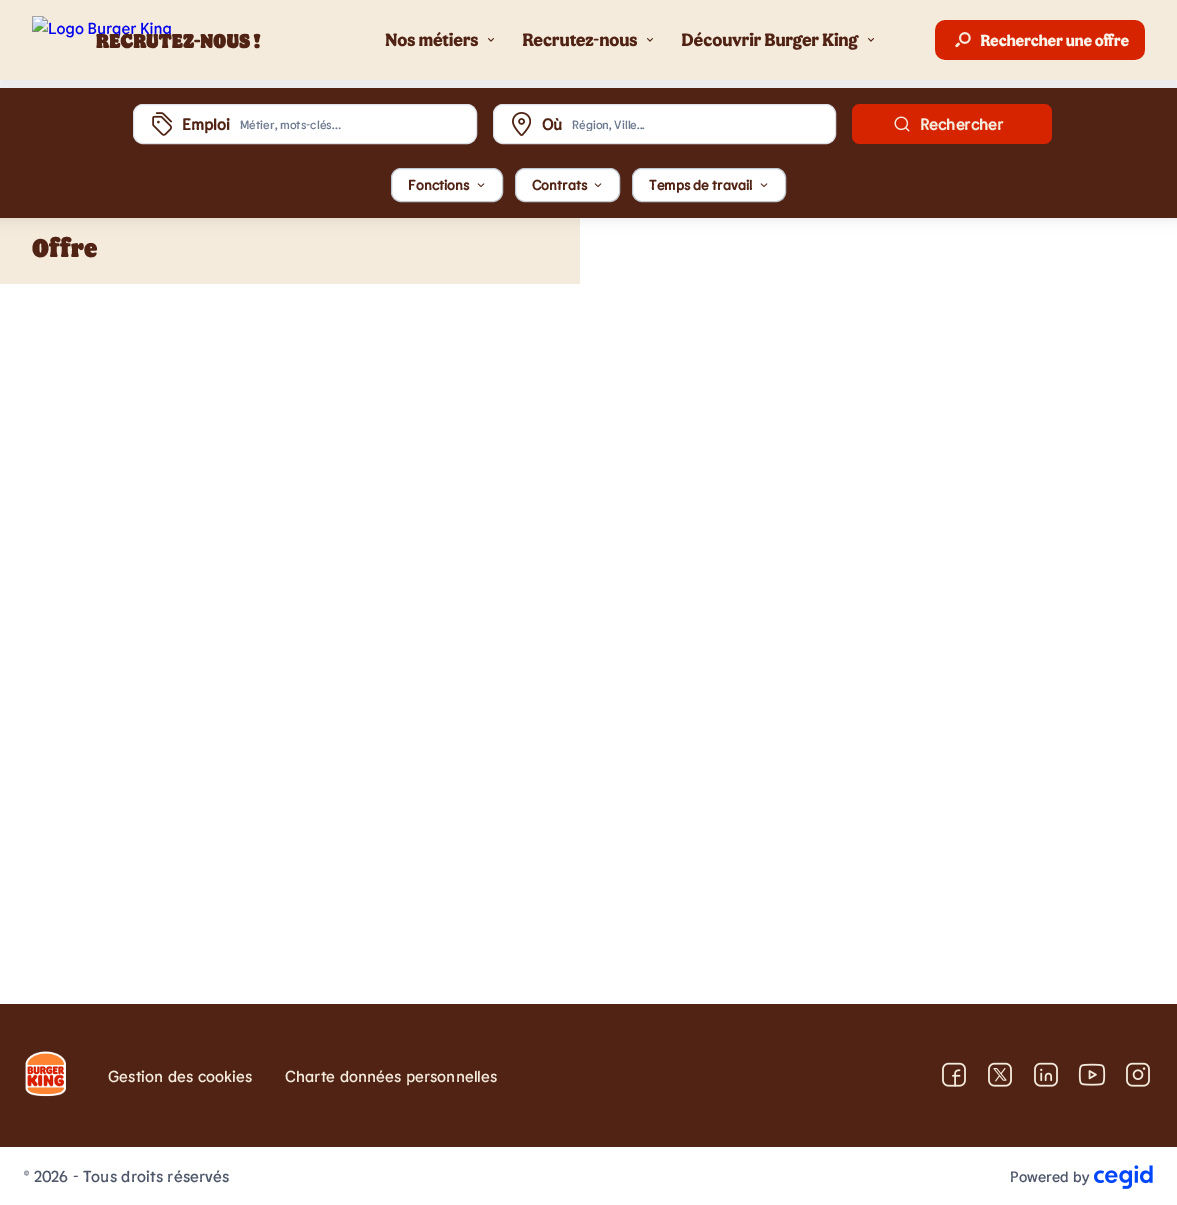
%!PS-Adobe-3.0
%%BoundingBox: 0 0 1177 1205
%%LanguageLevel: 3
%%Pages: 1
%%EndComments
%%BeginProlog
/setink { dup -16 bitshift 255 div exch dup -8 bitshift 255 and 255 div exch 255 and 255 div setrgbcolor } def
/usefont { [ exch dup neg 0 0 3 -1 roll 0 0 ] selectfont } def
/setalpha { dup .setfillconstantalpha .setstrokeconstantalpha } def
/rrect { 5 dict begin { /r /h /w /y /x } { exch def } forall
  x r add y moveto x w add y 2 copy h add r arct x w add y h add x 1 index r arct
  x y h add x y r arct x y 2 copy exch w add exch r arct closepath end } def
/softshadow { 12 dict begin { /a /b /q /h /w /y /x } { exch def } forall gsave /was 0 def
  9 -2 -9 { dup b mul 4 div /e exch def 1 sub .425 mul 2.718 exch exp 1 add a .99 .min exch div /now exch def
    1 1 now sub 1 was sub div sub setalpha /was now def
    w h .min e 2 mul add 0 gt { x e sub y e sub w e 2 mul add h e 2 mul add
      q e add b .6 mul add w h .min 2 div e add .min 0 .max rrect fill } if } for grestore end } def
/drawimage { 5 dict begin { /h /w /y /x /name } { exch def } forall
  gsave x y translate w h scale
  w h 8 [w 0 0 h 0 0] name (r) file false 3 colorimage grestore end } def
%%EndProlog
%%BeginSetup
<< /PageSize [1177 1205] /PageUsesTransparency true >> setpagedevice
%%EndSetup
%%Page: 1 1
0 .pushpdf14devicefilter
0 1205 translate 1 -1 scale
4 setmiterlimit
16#FFFFFF setink
0 0 1177 1205 rectfill
16#F9F9FC setink
0 80 1177 8 rectfill
16#F5EBDC setink
0 218 580 66 rectfill
16#000000 setink
0 90 1177 130 0 6 0.08 softshadow
16#502314 setink
0 88 1177 130 rectfill
16#000000 setink
0 5 1177 80 0 5 0.05 softshadow
(img1.raw) 0 0 1177 80 drawimage
16#FFFFFF setink
133.5 104.5 343 39 9.5 rrect gsave fill grestore
16#DEE0E9 setink
stroke
(img2.raw) 152 112 20 24 drawimage
/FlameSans-Bold 16 usefont
16#502314 setink
182 130 moveto (Emploi) show
/FlameSans-Regular 12 usefont
16#6C798F setink
240 129 moveto (Métier, mots-clés…) show
16#FFFFFF setink
493.5 104.5 342 39 9.5 rrect gsave fill grestore
16#DEE0E9 setink
stroke
(img3.raw) 512 112 19 24 drawimage
/FlameSans-Bold 16 usefont
16#502314 setink
542 130 moveto (Où) show
gsave
572 117 253 14 rectclip
/FlameSans-Regular 12 usefont
16#6C798F setink
572 129 moveto (Région, Ville...) show
grestore
16#D62300 setink
852 104 200 40 8 rrect fill
(img4.raw) 894 116 16 16 drawimage
16#F5EBDC setink
920 130 moveto (Rechercher) show
16#FFFFFF setink
391.5 168.5 111 33 9.5 rrect gsave fill grestore
16#C1C7D0 setink
stroke
/FlameSans-Bold 14 usefont
16#502314 setink
408 190 moveto (Fonctions) show
(img5.raw) 477 183 8 4 drawimage
16#FFFFFF setink
515.5 168.5 104 33 9.5 rrect gsave fill grestore
16#C1C7D0 setink
stroke
16#502314 setink
532 190 moveto (Contrats) show
(img5.raw) 594 183 8 4 drawimage
16#FFFFFF setink
632.5 168.5 153 33 9.5 rrect gsave fill grestore
16#C1C7D0 setink
stroke
16#502314 setink
649 190 moveto (Temps de travail) show
(img5.raw) 760 183 8 4 drawimage
/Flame-Bold 25.5 usefont
32 257 moveto (Offre) show
0 1004 1177 143 rectfill
(img6.raw) 25 1051 41 46 drawimage
/FlameSans-Regular 16 usefont
16#F5EBDC setink
108 1082 moveto 1 0 32 (Gestion des cookies) widthshow
285 1082 moveto 1 0 32 (Charte données personnelles) widthshow
(img7.raw) 942 1062 24 25 drawimage
(img8.raw) 988 1062 24 25 drawimage
(img9.raw) 1034 1062 24 25 drawimage
(img10.raw) 1078 1063 28 23 drawimage
(img11.raw) 1126 1062 24 25 drawimage
16#4E576A setink
24 1182 moveto 1 0 32 (© 2026 - Tous droits réservés) widthshow
/FlameSans-Regular 15 usefont
1010 1182 moveto 1 0 32 (Powered by) widthshow
(img12.raw) 1094 1165 59 24 drawimage
.poppdf14devicefilter showpage
%%EOF
